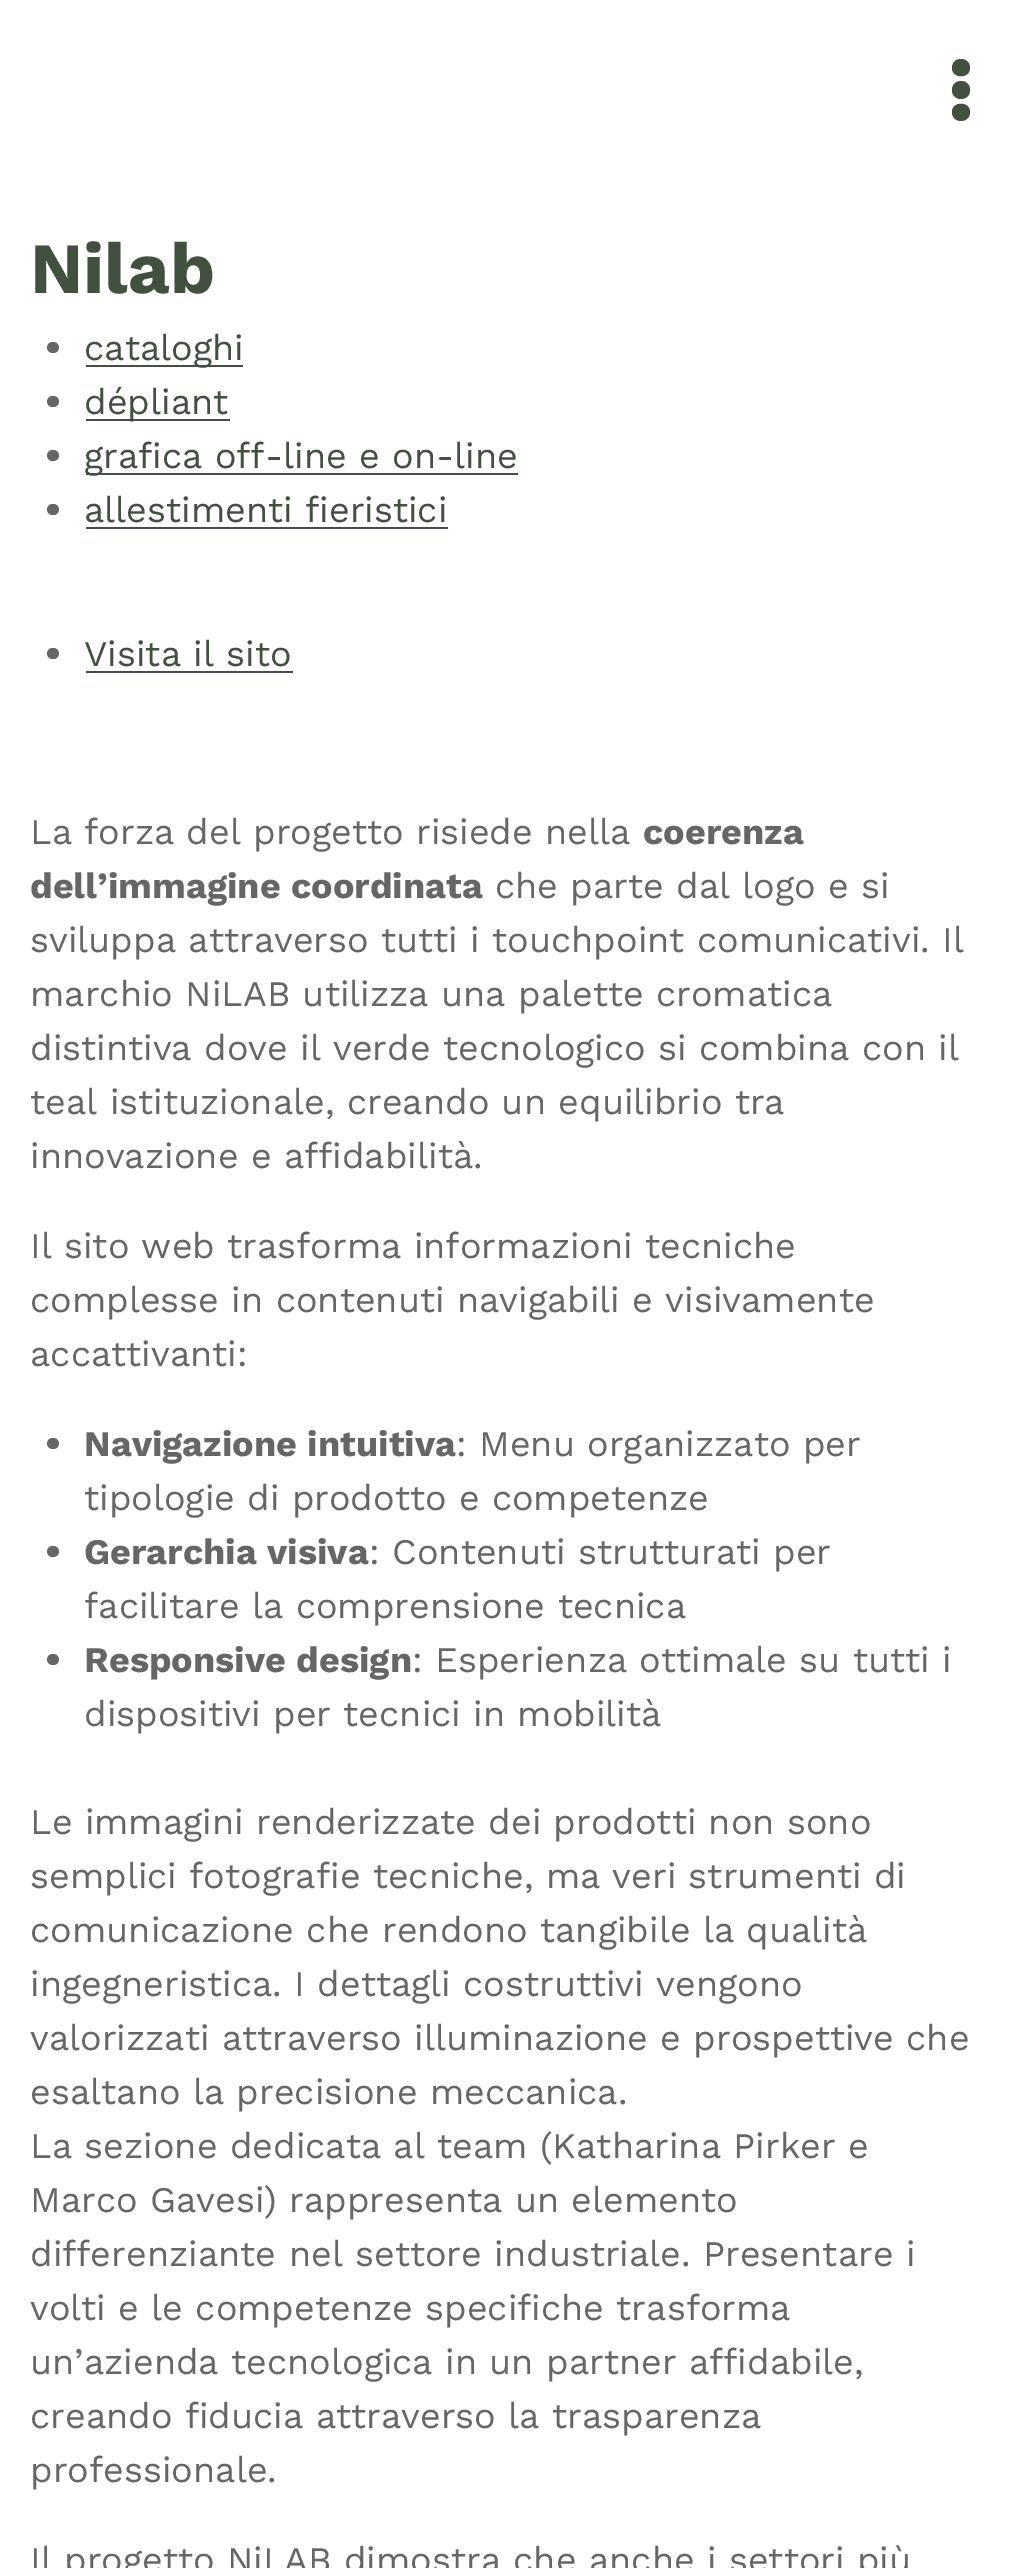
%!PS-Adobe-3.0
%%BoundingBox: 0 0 1014 2568
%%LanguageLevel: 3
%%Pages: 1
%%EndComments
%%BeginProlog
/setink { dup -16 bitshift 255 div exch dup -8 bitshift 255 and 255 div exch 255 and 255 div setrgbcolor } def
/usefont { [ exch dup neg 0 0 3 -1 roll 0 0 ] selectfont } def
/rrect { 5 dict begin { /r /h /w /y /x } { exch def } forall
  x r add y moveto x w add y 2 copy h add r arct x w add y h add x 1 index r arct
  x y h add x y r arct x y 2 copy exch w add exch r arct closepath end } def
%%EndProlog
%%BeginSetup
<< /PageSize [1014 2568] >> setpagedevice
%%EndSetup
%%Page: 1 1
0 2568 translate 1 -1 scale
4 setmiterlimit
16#FFFFFF setink
0 0 1014 2568 rectfill
16#425040 setink
952 68 moveto 952 56 970 56 970 68 curveto 970 79 952 79 952 68 curveto closepath 952 90 moveto 952 78 970 78 970 90 curveto 970 102 952 102 952 90 curveto closepath 952 112 moveto 952 101 970 101 970 112 curveto 970 124 952 124 952 112 curveto closepath fill
/WorkSans-Bold 72 usefont
30 293 moveto (Nilab) show
16#666666 setink
47 342 12 11 5.5 rrect fill
16#425040 setink
86 365 157 2 rectfill
/WorkSans-Regular 36 usefont
84 360 moveto (cataloghi) show
16#666666 setink
47 396 12 11 5.5 rrect fill
16#425040 setink
86 419 144 2 rectfill
84 414 moveto (dépliant) show
16#666666 setink
47 450 12 11 5.5 rrect fill
16#425040 setink
86 473 432 2 rectfill
84 468 moveto (grafica off-line e on-line) show
16#666666 setink
47 504 12 11 5.5 rrect fill
16#425040 setink
84 522 moveto (allestimenti fieristici) show
86 527 362 2 rectfill
16#666666 setink
47 648 12 11 5.5 rrect fill
16#425040 setink
84 666 moveto (Visita il sito) show
86 671 207 2 rectfill
16#666666 setink
30 844 moveto (La forza del progetto risiede nella) show
/WorkSans-Bold 36 usefont
643 844 moveto (coerenza) show
30 898 moveto (dell’immagine coordinata) show
/WorkSans-Regular 36 usefont
[
    [(che parte dal logo e si) 495 898]
    [(sviluppa attraverso tutti i touchpoint comunicativi. Il) 30 952]
    [(marchio NiLAB utilizza una palette cromatica) 30 1006]
    [(distintiva dove il verde tecnologico si combina con il) 30 1060]
    [(teal istituzionale, creando un equilibrio tra) 30 1114]
    [(innovazione e affidabilità.) 30 1168]
    [(Il sito web trasforma informazioni tecniche) 30 1258]
    [(complesse in contenuti navigabili e visivamente) 30 1312]
    [(accattivanti:) 30 1366]
] { aload pop moveto show } forall
47 1438 12 11 5.5 rrect fill
/WorkSans-Bold 36 usefont
84 1456 moveto (Navigazione intuitiva) show
/WorkSans-Regular 36 usefont
456 1456 moveto (: Menu organizzato per) show
84 1510 moveto (tipologie di prodotto e competenze) show
47 1546 12 11 5.5 rrect fill
/WorkSans-Bold 36 usefont
84 1564 moveto (Gerarchia visiva) show
/WorkSans-Regular 36 usefont
369 1564 moveto (: Contenuti strutturati per) show
84 1618 moveto (facilitare la comprensione tecnica) show
47 1654 12 11 5.5 rrect fill
/WorkSans-Bold 36 usefont
84 1672 moveto (Responsive design) show
/WorkSans-Regular 36 usefont
[
    [(: Esperienza ottimale su tutti i) 412 1672]
    [(dispositivi per tecnici in mobilità) 84 1726]
    [(Le immagini renderizzate dei prodotti non sono) 30 1834]
    [(semplici fotografie tecniche, ma veri strumenti di) 30 1888]
    [(comunicazione che rendono tangibile la qualità) 30 1942]
    [(ingegneristica. I dettagli costruttivi vengono) 30 1996]
    [(valorizzati attraverso illuminazione e prospettive che) 30 2050]
    [(esaltano la precisione meccanica.) 30 2104]
    [(La sezione dedicata al team \(Katharina Pirker e) 30 2158]
    [(Marco Gavesi\) rappresenta un elemento) 30 2212]
    [(differenziante nel settore industriale. Presentare i) 30 2266]
    [(volti e le competenze specifiche trasforma) 30 2320]
    [(un’azienda tecnologica in un partner affidabile,) 30 2374]
    [(creando fiducia attraverso la trasparenza) 30 2428]
    [(professionale.) 30 2482]
    [(Il progetto NiLAB dimostra che anche i settori più) 30 2572]
] { aload pop moveto show } forall
showpage
%%EOF
